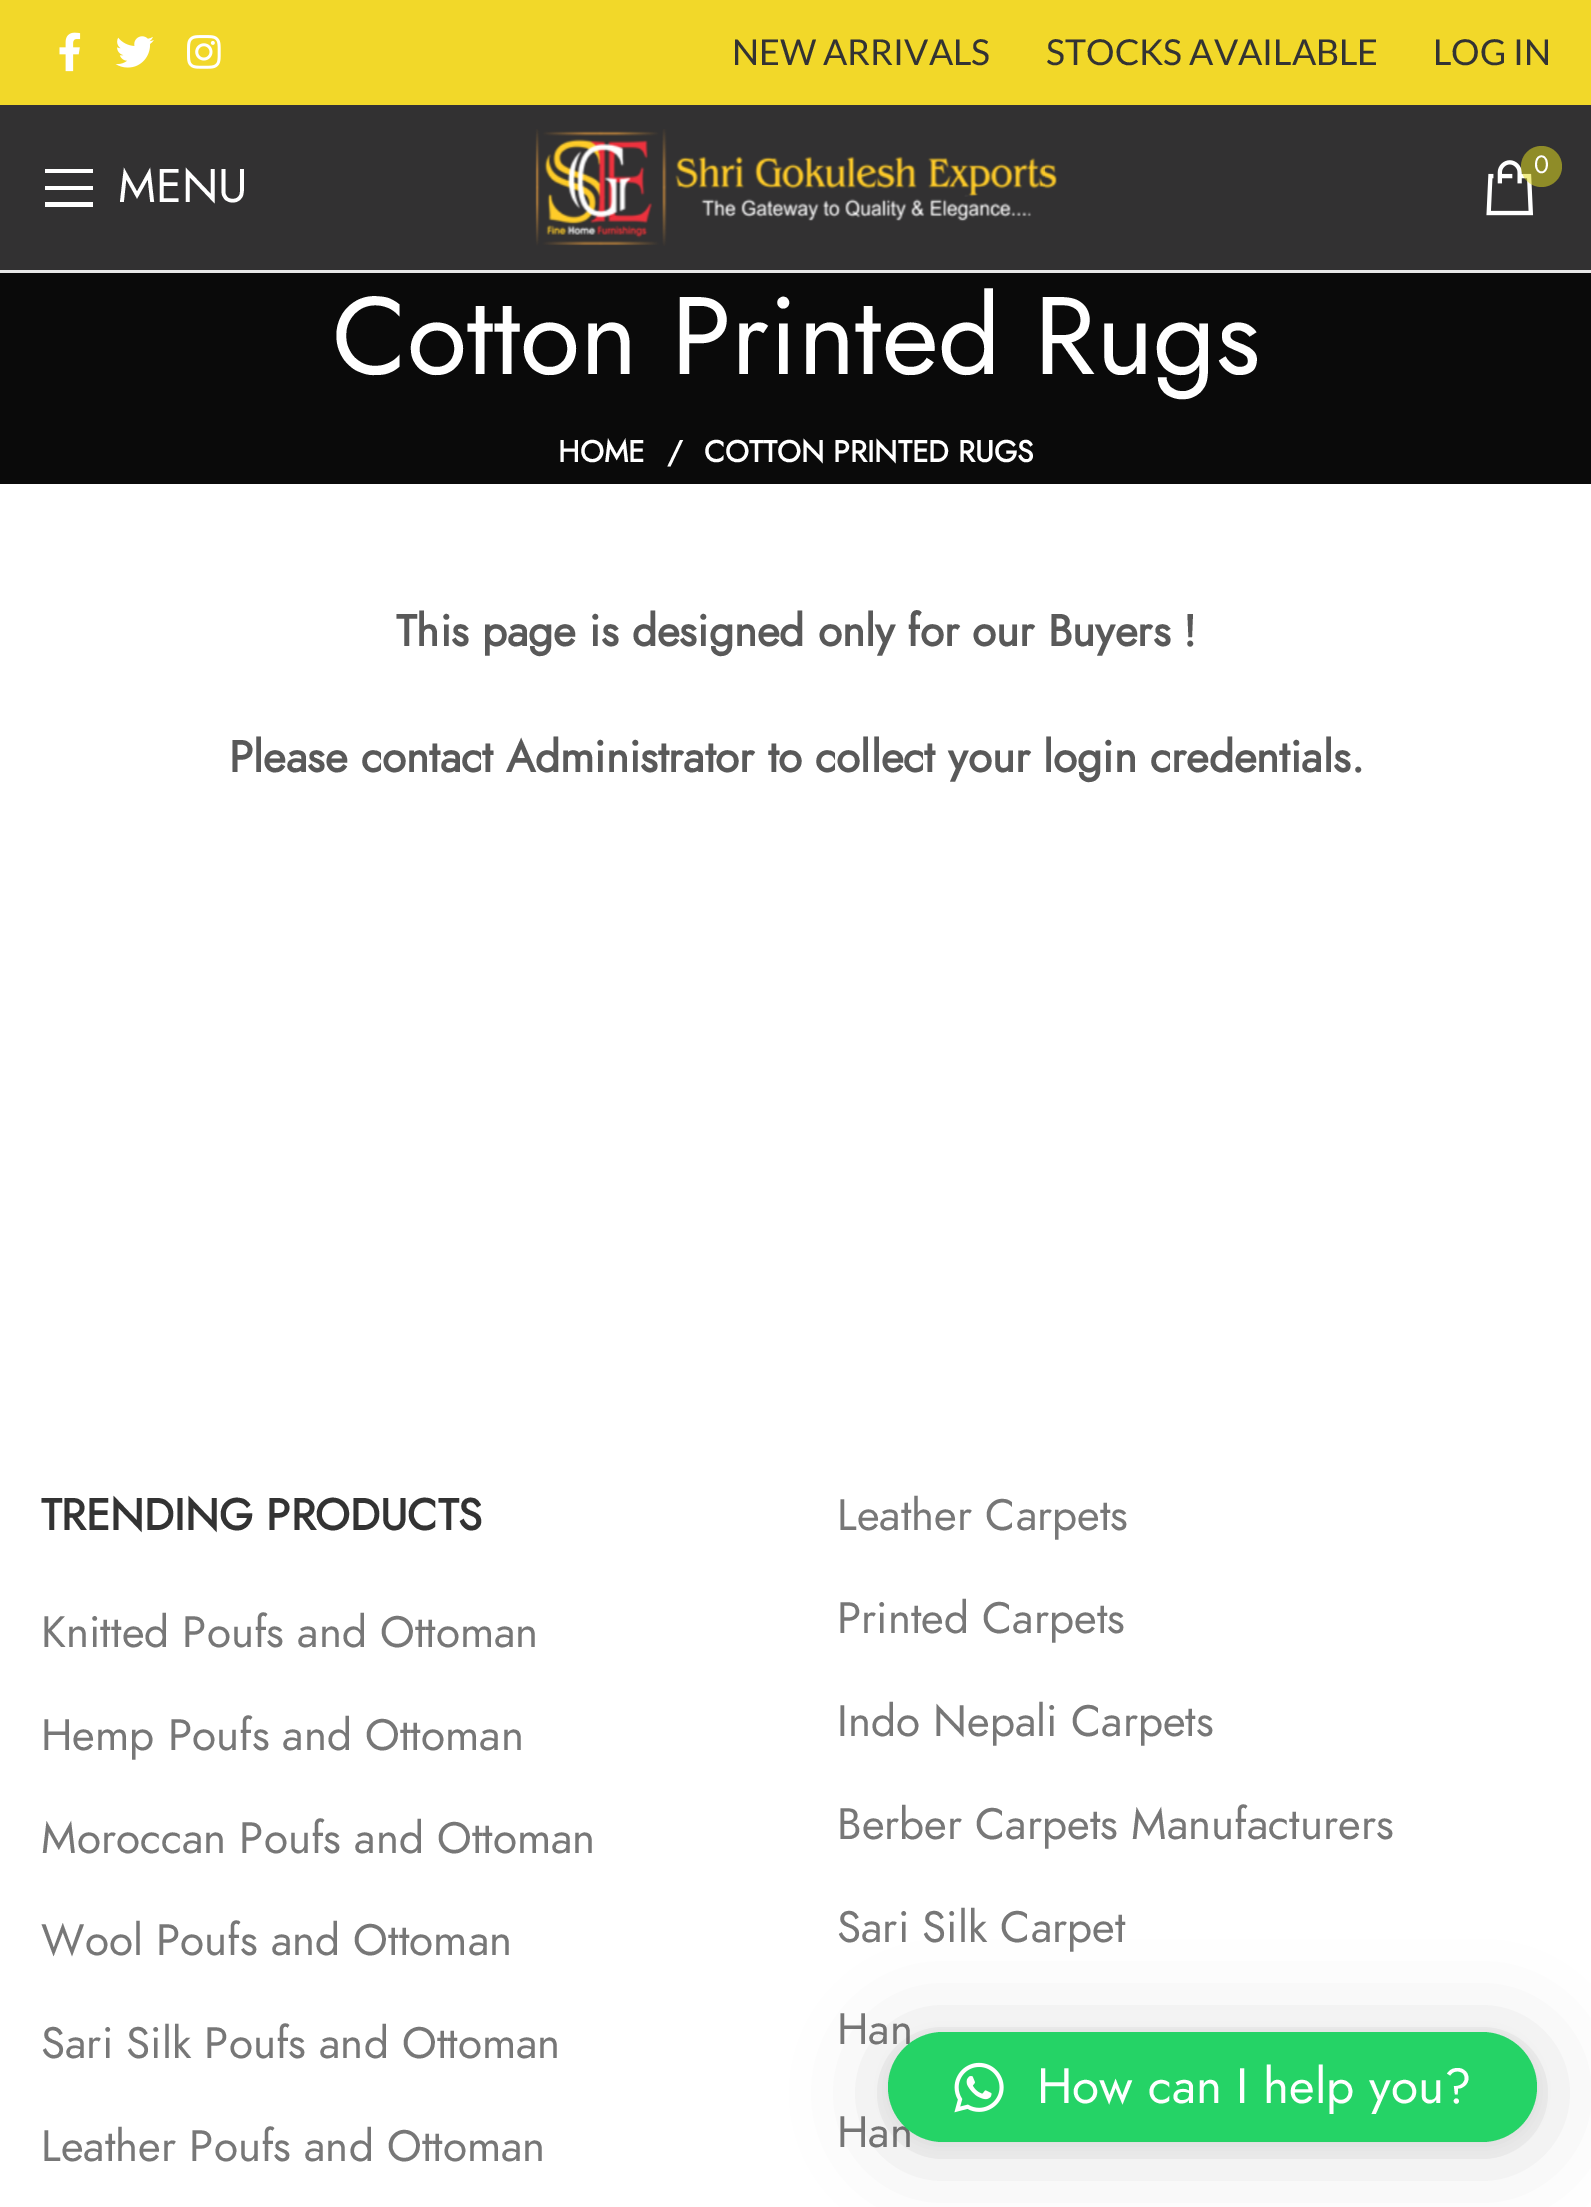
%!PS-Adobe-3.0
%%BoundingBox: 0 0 1591 2207
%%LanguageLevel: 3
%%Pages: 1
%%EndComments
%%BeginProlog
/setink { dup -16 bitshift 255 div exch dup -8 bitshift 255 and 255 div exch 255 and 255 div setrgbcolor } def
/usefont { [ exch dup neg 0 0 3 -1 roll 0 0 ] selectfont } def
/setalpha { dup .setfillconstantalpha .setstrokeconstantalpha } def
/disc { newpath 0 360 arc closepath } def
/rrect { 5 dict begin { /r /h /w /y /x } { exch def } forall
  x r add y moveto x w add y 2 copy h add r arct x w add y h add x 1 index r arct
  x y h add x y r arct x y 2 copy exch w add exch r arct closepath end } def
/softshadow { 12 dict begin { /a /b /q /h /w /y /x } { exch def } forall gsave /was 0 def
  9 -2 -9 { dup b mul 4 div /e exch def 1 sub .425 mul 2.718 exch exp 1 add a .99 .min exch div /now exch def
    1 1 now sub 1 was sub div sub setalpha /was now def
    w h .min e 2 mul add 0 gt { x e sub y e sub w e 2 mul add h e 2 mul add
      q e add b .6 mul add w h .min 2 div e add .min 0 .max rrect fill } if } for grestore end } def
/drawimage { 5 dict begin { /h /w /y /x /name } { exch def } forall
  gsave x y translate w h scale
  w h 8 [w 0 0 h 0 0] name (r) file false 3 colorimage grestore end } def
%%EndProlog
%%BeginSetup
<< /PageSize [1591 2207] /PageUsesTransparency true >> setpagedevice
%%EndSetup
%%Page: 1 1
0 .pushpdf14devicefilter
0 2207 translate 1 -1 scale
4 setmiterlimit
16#FFFFFF setink
0 0 1591 2207 rectfill
16#F2D829 setink
0 0 1591 105 rectfill
(img1.raw) 59 32 22 40 drawimage
(img2.raw) 115 36 39 32 drawimage
(img3.raw) 187 35 34 34 drawimage
/Lato-Regular 35.75 usefont
16#333333 setink
[
    [(NEW ARRIVALS) 732 65]
    [(STOCKS AVAILABLE) 1046 65]
    [(LOG IN) 1433 65]
] { aload pop moveto show } forall
16#323132 setink
0 105 1591 165 rectfill
16#E8E8E8 setink
0 270 1591 3 rectfill
(img4.raw) 535 129 522 117 drawimage
(img5.raw) 1486 160 48 56 drawimage
0.53 setalpha
16#E2DC1F setink
1541.5 166.5 20.5 disc fill
/Jost-Regular 25 usefont
1 setalpha
16#FFFFFF setink
1534 173 moveto (0) show
45 173 moveto 93 173 lineto 93 169 lineto 45 169 lineto closepath 45 190 moveto 93 190 lineto 93 186 lineto 45 186 lineto closepath 45 207 moveto 93 207 lineto 93 202 lineto 45 202 lineto closepath fill
/Jost-Regular 47 usefont
118 202 moveto (MENU) show
16#0A0A0A setink
0 273 1591 211 rectfill
/Jost-Regular 110 usefont
16#FFFFFF setink
332 374 moveto (Cotton Printed Rugs) show
/Jost-Bold 30.25 usefont
[
    [(HOME) 558 462]
    [(/) 667 462]
    [(COTTON PRINTED RUGS) 704 462]
] { aload pop moveto show } forall
/Jost-Bold 44 usefont
16#595959 setink
396 646 moveto (This page is designed only for our Buyers !) show
229 772 moveto (Please contact Administrator to collect your login credentials.) show
16#333333 setink
41 1530 moveto (TRENDING PRODUCTS) show
/Jost-Regular 44 usefont
16#777777 setink
[
    [(Knitted Poufs and Ottoman) 41 1647]
    [(Hemp Poufs and Ottoman) 41 1750]
    [(Moroccan Poufs and Ottoman) 41 1853]
    [(Wool Poufs and Ottoman) 41 1955]
    [(Sari Silk Poufs and Ottoman) 41 2058]
    [(Leather Poufs and Ottoman) 41 2161]
    [(Leather Carpets) 837 1530]
    [(Printed Carpets) 837 1633]
    [(Indo Nepali Carpets) 837 1736]
    [(Berber Carpets Manufacturers) 837 1839]
    [(Sari Silk Carpet) 837 1942]
    [(Han) 837 2044]
    [(Han) 837 2147]
] { aload pop moveto show } forall
16#000000 setink
888 2038 649 110 55 44 0.16 softshadow
888 2035 649 110 55 8 0.06 softshadow
16#25D366 setink
888 2032 649 110 55 rrect fill
(img6.raw) 954 2062 50 51 drawimage
/Jost-Regular 49.5 usefont
16#FFFFFF setink
1037 2103 moveto (How can I help you?) show
.poppdf14devicefilter showpage
%%EOF
